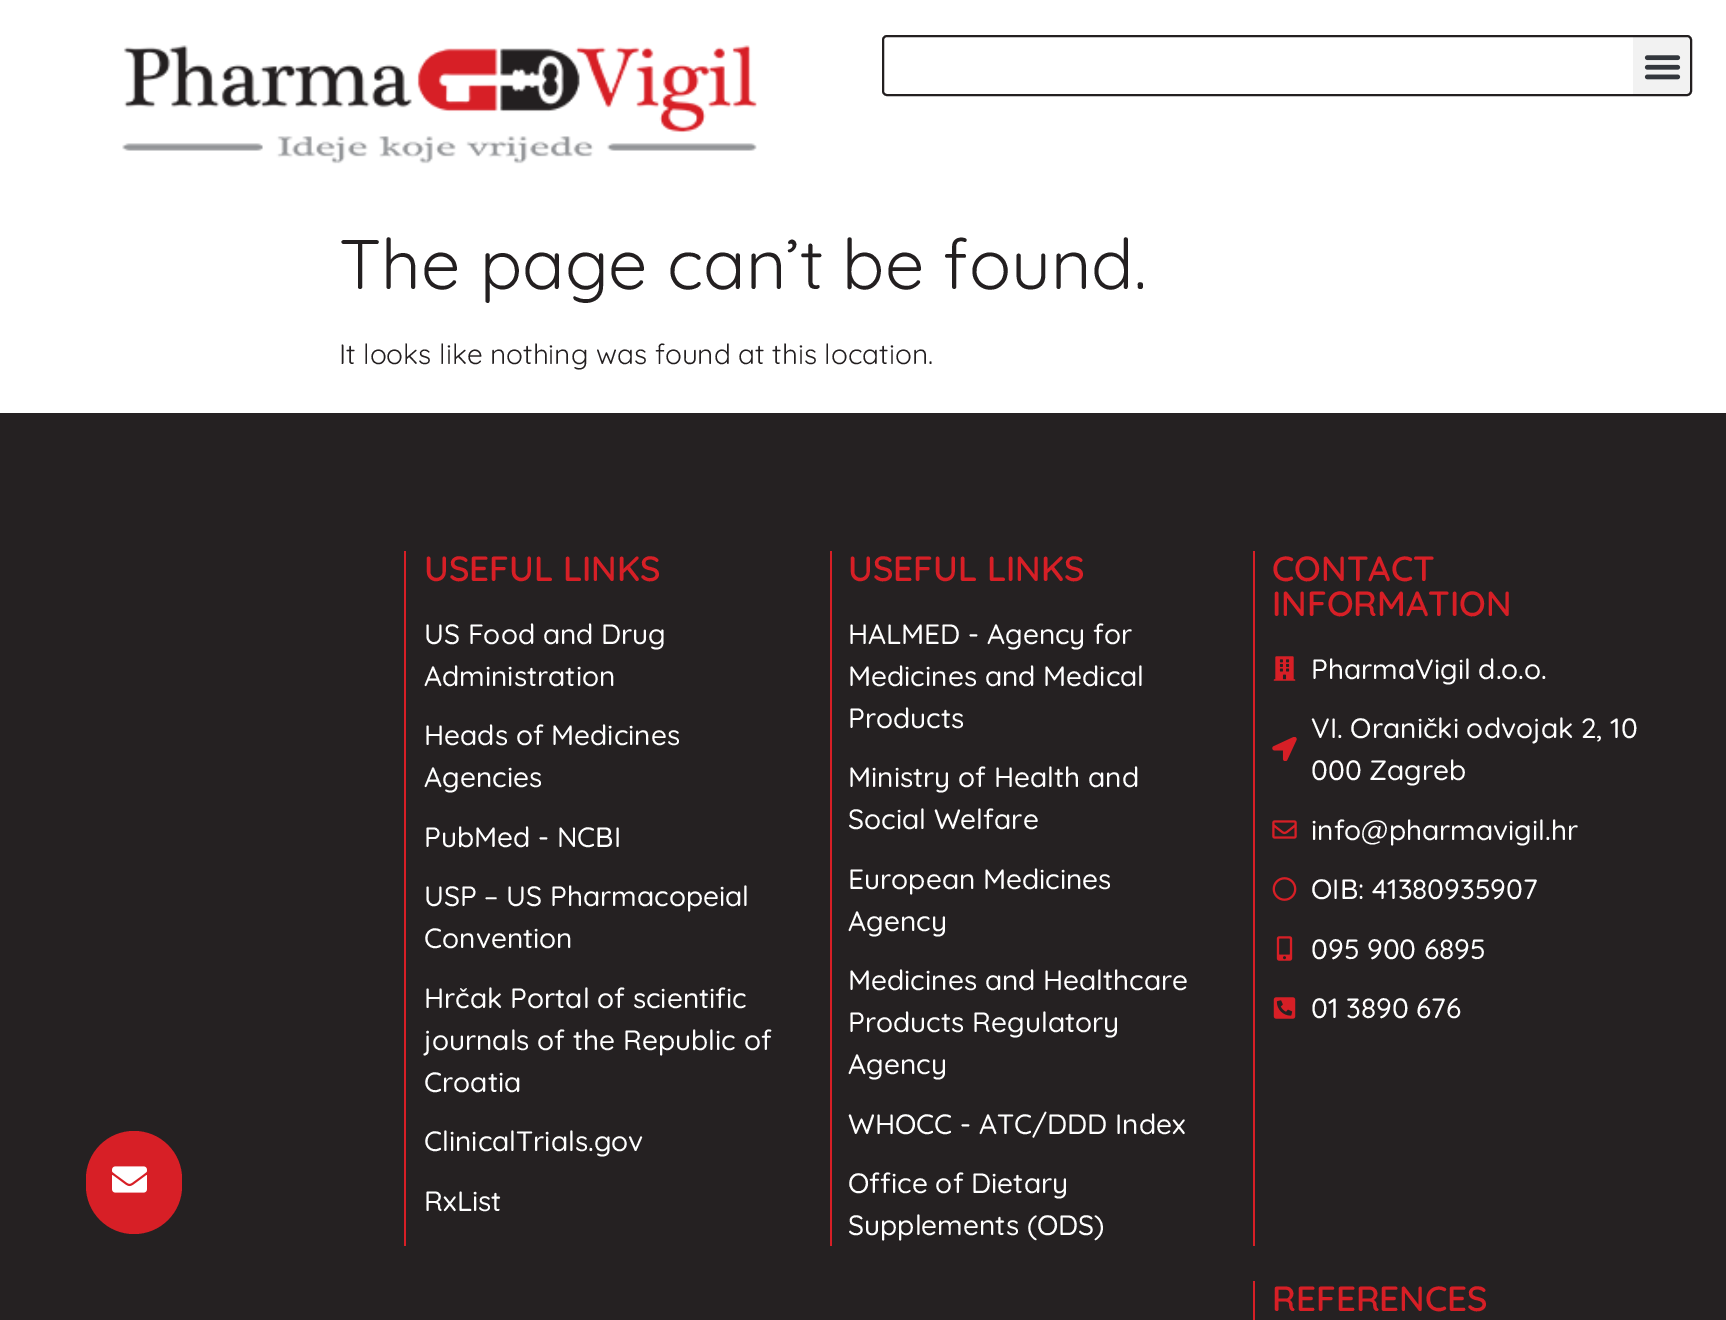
%!PS-Adobe-3.0
%%BoundingBox: 0 0 1726 1320
%%LanguageLevel: 3
%%Pages: 1
%%EndComments
%%BeginProlog
/setink { dup -16 bitshift 255 div exch dup -8 bitshift 255 and 255 div exch 255 and 255 div setrgbcolor } def
/usefont { [ exch dup neg 0 0 3 -1 roll 0 0 ] selectfont } def
/setalpha { dup .setfillconstantalpha .setstrokeconstantalpha } def
/rrect { 5 dict begin { /r /h /w /y /x } { exch def } forall
  x r add y moveto x w add y 2 copy h add r arct x w add y h add x 1 index r arct
  x y h add x y r arct x y 2 copy exch w add exch r arct closepath end } def
/drawimage { 5 dict begin { /h /w /y /x /name } { exch def } forall
  gsave x y translate w h scale
  w h 8 [w 0 0 h 0 0] name (r) file false 3 colorimage grestore end } def
%%EndProlog
%%BeginSetup
<< /PageSize [1726 1320] /PageUsesTransparency true >> setpagedevice
%%EndSetup
%%Page: 1 1
0 .pushpdf14devicefilter
0 1320 translate 1 -1 scale
4 setmiterlimit
16#FFFFFF setink
0 0 1726 1320 rectfill
(img1.raw) 122 45 635 119 drawimage
16#231F20 setink
2 setlinewidth
883 36 808 59 4 rrect stroke
0.05 setalpha
16#000000 setink
1633 37 58 58 rectfill
1 setalpha
(img2.raw) 1644 55 37 25 drawimage
/Quicksand-Regular 70 usefont
16#231F20 setink
339 289 moveto (The page can’t be found.) show
/Quicksand-Regular 28 usefont
339 364 moveto (It looks like nothing was found at this location.) show
16#252122 setink
0 413 1726 907 rectfill
16#D71F26 setink
404 551 2 695 rectfill
/Quicksand-SemiBold 35 usefont
424 581 moveto (USEFUL LINKS) show
/Quicksand-Medium 28 usefont
16#FFFFFF setink
[
    [(US Food and Drug) 424 644]
    [(Administration) 424 686]
    [(Heads of Medicines) 424 745]
    [(Agencies) 424 787]
    [(PubMed - NCBI) 424 847]
    [(USP – US Pharmacopeial) 424 906]
    [(Convention) 424 948]
    [(Hrčak Portal of scientific) 424 1008]
    [(journals of the Republic of) 424 1050]
    [(Croatia) 424 1092]
    [(ClinicalTrials.gov) 424 1151]
    [(RxList) 424 1211]
] { aload pop moveto show } forall
16#D71F26 setink
830 551 2 695 rectfill
/Quicksand-SemiBold 35 usefont
848 581 moveto (USEFUL LINKS) show
86 1131 96 103 48 rrect fill
(img3.raw) 112 1166 35 27 drawimage
/Quicksand-Medium 28 usefont
16#FFFFFF setink
[
    [(HALMED - Agency for) 848 644]
    [(Medicines and Medical) 848 686]
    [(Products) 848 728]
    [(Ministry of Health and) 848 787]
    [(Social Welfare) 848 829]
    [(European Medicines) 848 889]
    [(Agency) 848 931]
    [(Medicines and Healthcare) 848 990]
    [(Products Regulatory) 848 1032]
    [(Agency) 848 1074]
    [(WHOCC - ATC/DDD Index) 848 1134]
    [(Office of Dietary) 848 1193]
    [(Supplements \(ODS\)) 848 1235]
] { aload pop moveto show } forall
16#D71F26 setink
1253 551 2 695 rectfill
/Quicksand-SemiBold 35 usefont
1272 581 moveto (CONTACT) show
1272 616 moveto (INFORMATION) show
(img4.raw) 1273 656 23 25 drawimage
/Quicksand-Medium 28 usefont
16#FFFFFF setink
1311 679 moveto (PharmaVigil d.o.o.) show
(img5.raw) 1272 737 25 24 drawimage
1311 738 moveto (VI. Oranički odvojak 2, 10) show
1311 780 moveto (000 Zagreb) show
(img6.raw) 1272 820 25 19 drawimage
1311 840 moveto (info@pharmavigil.hr) show
(img7.raw) 1272 877 25 24 drawimage
1311 899 moveto (OIB: 41380935907) show
(img8.raw) 1276 936 17 25 drawimage
1311 959 moveto (095 900 6895) show
(img9.raw) 1273 997 23 22 drawimage
1311 1018 moveto (01 3890 676) show
16#D71F26 setink
1253 1281 2 39 rectfill
/Quicksand-SemiBold 35 usefont
1272 1311 moveto (REFERENCES) show
.poppdf14devicefilter showpage
%%EOF
